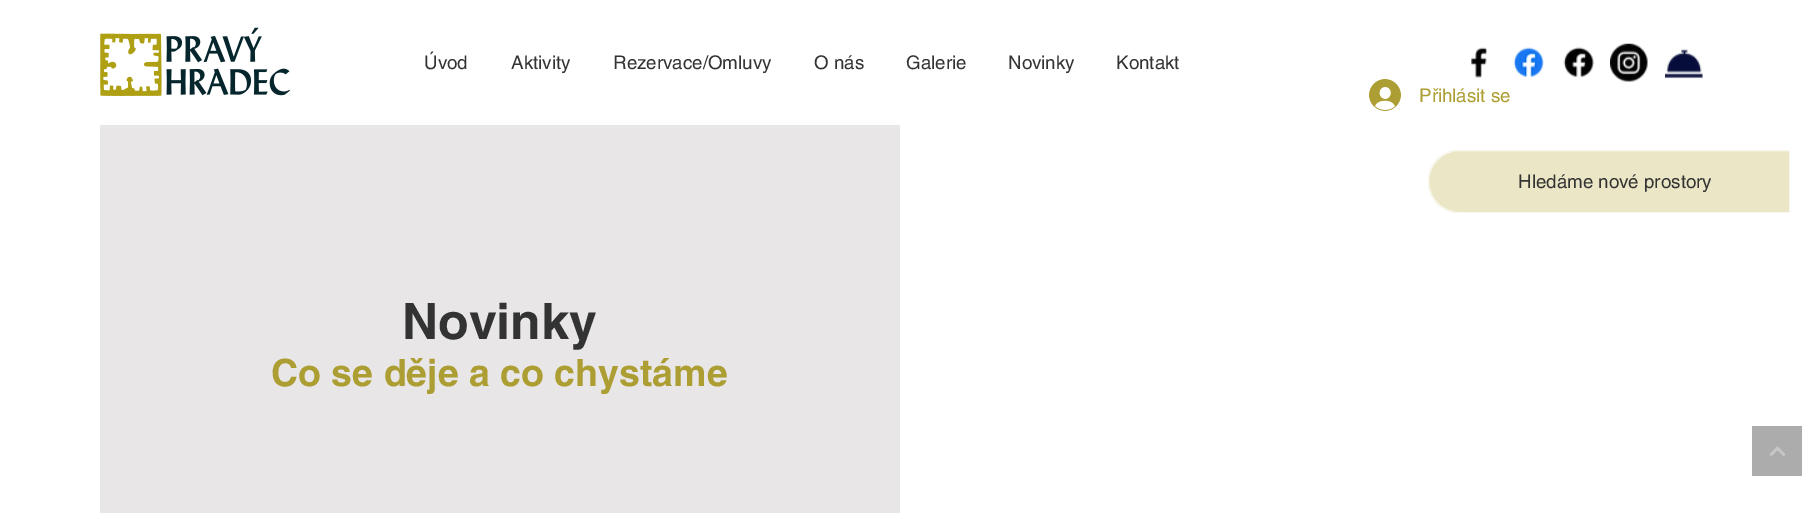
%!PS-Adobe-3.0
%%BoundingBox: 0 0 1802 513
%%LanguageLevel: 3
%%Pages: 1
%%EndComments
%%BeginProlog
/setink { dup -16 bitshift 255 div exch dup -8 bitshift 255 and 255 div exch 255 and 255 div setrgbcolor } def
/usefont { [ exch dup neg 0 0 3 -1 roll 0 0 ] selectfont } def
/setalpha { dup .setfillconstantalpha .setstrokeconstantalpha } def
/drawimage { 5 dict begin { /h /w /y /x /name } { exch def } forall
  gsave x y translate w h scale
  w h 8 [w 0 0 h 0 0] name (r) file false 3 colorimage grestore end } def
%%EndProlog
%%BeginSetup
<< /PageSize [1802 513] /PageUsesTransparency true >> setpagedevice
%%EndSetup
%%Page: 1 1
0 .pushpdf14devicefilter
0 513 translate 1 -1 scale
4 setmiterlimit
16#FFFFFF setink
0 0 1802 513 rectfill
(img1.raw) 100 27 190 69 drawimage
/helvetica-Regular 18.75 usefont
16#333333 setink
[
    [(Úvod) 424 69]
    [(Aktivity) 511 69]
    [(Rezervace/Omluvy) 613 69]
    [(O nás) 814 69]
    [(Galerie) 906 69]
    [(Novinky) 1008 69]
    [(Kontakt) 1116 69]
] { aload pop moveto show } forall
(img2.raw) 1471 47 16 31 drawimage
(img3.raw) 1513 47 31 31 drawimage
(img4.raw) 1563 47 31 31 drawimage
(img5.raw) 1610 43 38 39 drawimage
(img6.raw) 1665 49 38 30 drawimage
(img7.raw) 1369 79 32 32 drawimage
16#AC9E32 setink
1419 102 moveto (Přihlásit se) show
16#EBE7C6 setink
1459.5 150 moveto 1790 150 lineto 1790 213 lineto 1459.5 213 lineto 1442 213 1428 199 1428 181.5 curveto 1428 164 1442 150 1459.5 150 curveto closepath fill
0.7 setalpha
16#FFFFFF setink
1459.5 150.5 moveto 1789.5 150.5 lineto 1789.5 212.5 lineto 1459.5 212.5 lineto 1442.5 212.5 1428.5 198.5 1428.5 181.5 curveto 1428.5 164.5 1442.5 150.5 1459.5 150.5 curveto closepath stroke
1 setalpha
16#333333 setink
1518 188 moveto (Hledáme nové prostory) show
16#E8E6E6 setink
100 125 800 388 rectfill
/helvetica-Bold 50 usefont
16#333333 setink
402 339 moveto (Novinky) show
/helvetica-Bold 37.5 usefont
16#AC9E32 setink
271 386 moveto (Co se děje a co chystáme) show
16#ACACAC setink
1752 426 50 50 rectfill
(img8.raw) 1769 446 17 10 drawimage
.poppdf14devicefilter showpage
%%EOF
